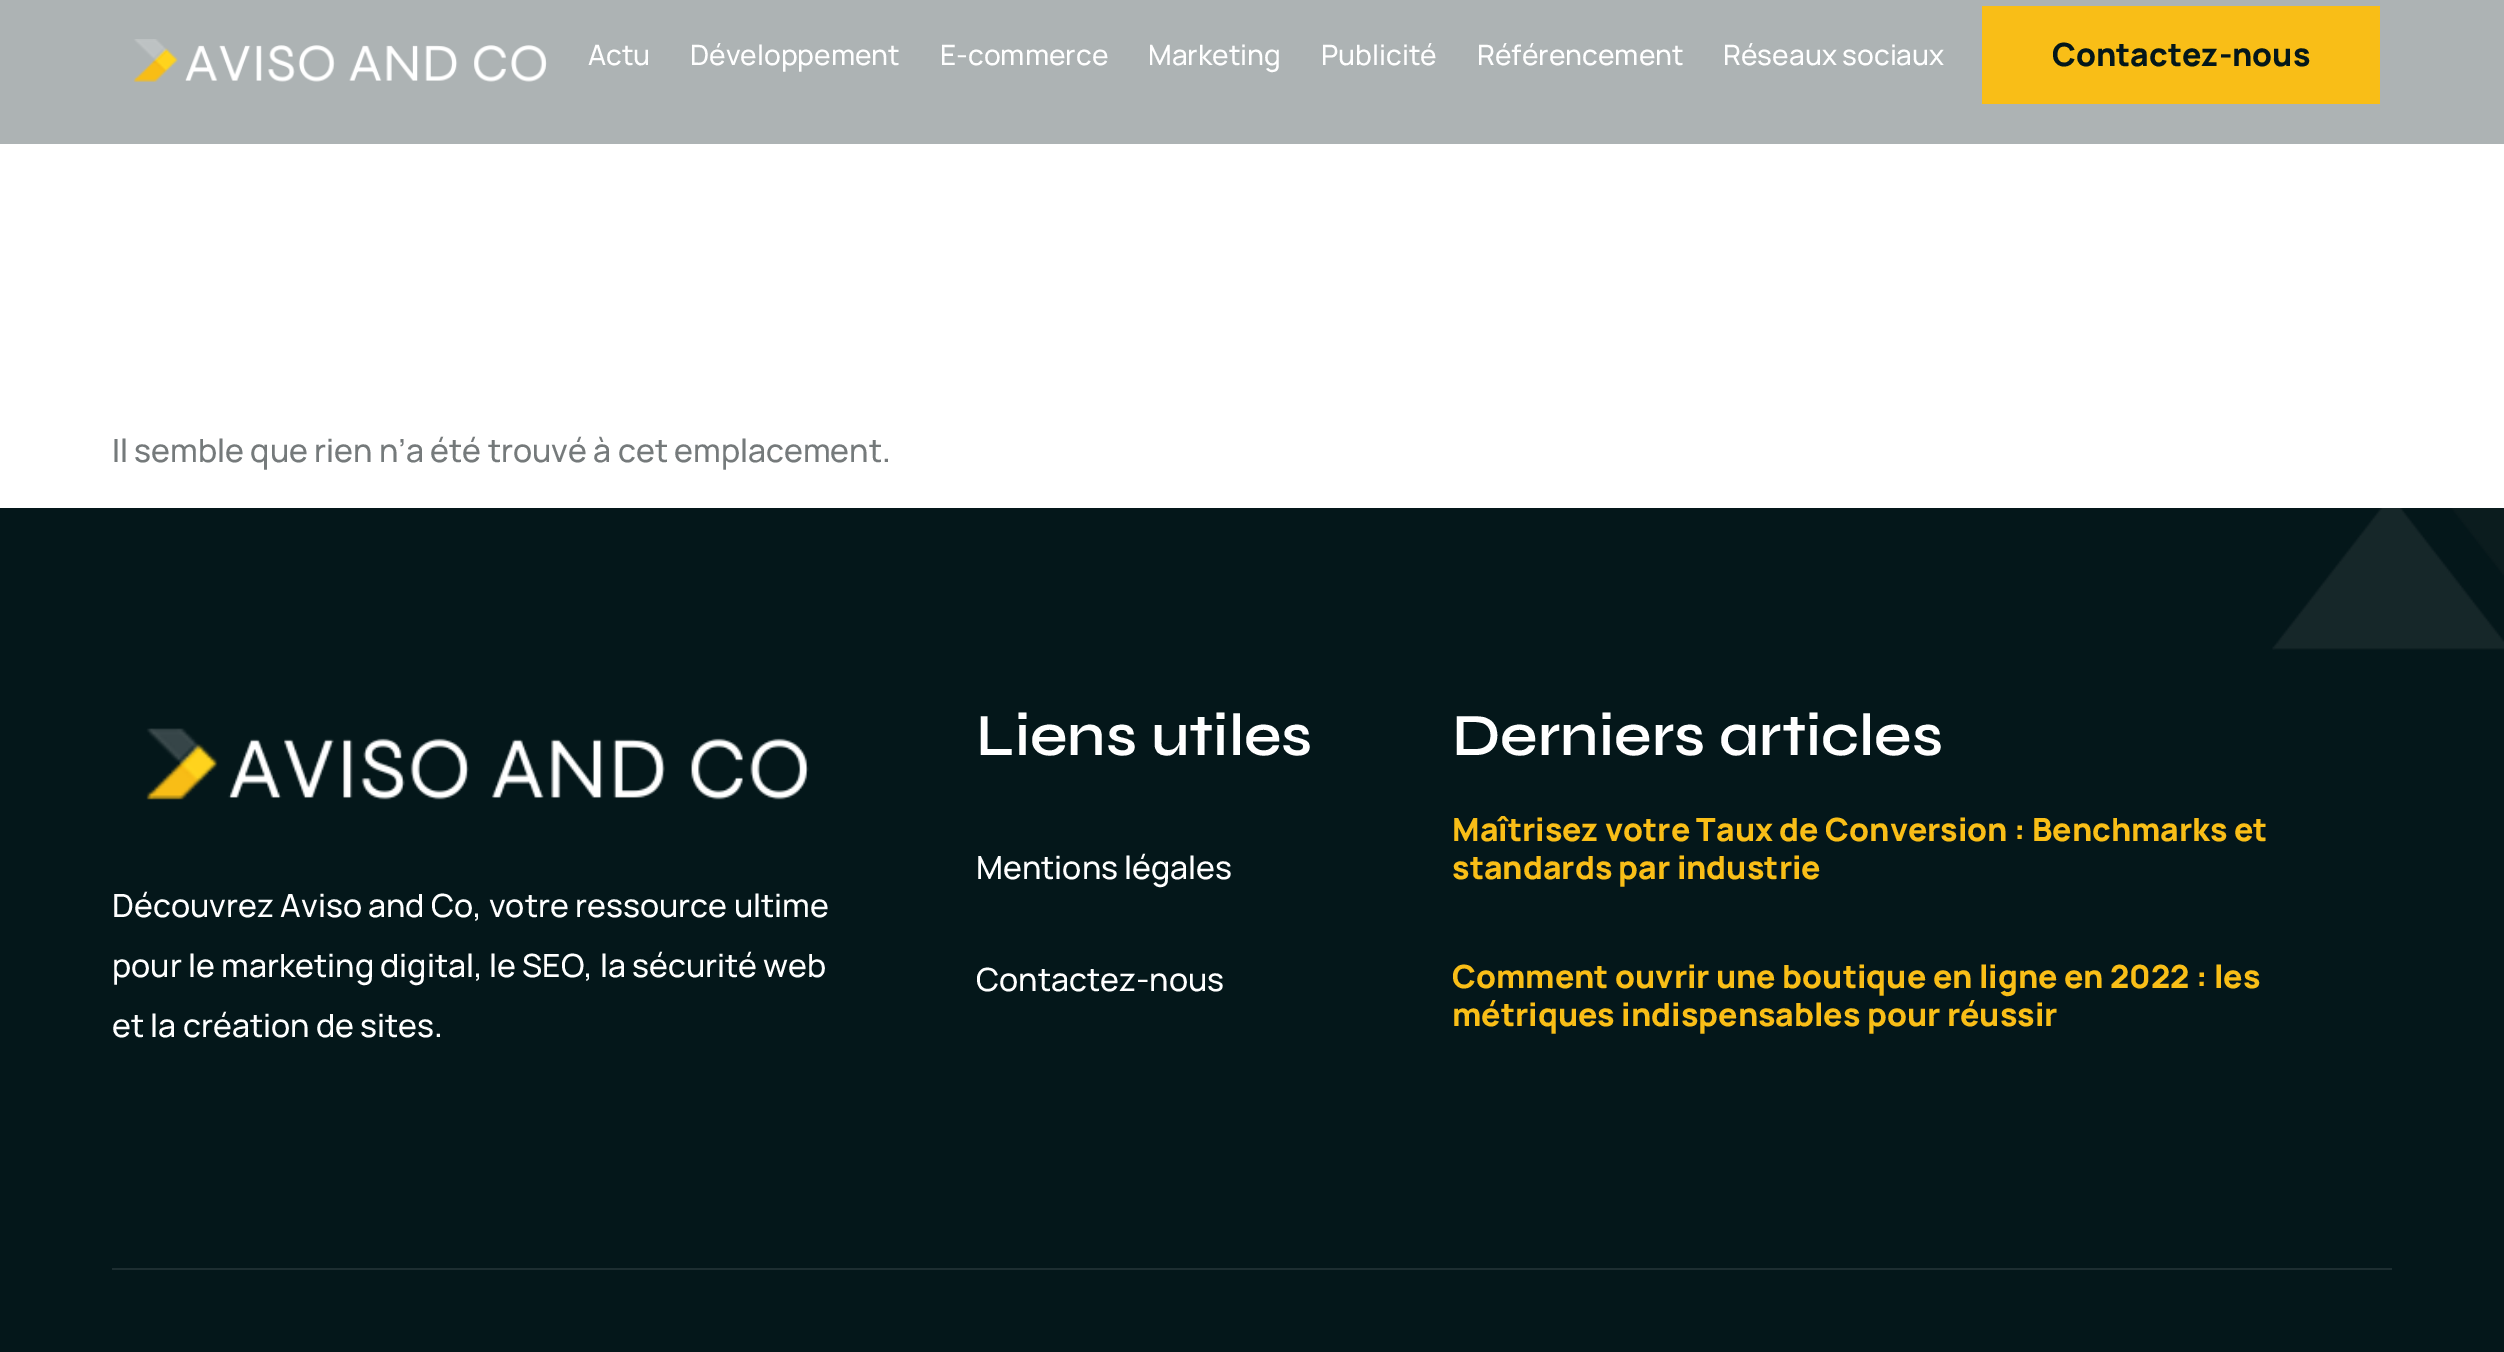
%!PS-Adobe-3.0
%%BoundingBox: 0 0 2504 1352
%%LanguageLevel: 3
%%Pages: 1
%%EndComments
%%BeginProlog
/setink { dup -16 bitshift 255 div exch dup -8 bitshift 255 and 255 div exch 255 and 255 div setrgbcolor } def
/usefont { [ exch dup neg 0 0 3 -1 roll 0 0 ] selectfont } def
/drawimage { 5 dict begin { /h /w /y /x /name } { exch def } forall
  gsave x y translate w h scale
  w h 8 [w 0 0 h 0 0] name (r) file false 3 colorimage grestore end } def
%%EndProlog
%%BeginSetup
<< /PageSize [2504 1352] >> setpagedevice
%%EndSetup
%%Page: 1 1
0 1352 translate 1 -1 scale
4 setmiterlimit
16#FFFFFF setink
0 0 2504 1352 rectfill
16#ADB3B4 setink
0 0 2504 144 rectfill
(img1.raw) 133 39 414 43 drawimage
/Manrope-Medium 28 usefont
16#FFFFFF setink
[
    [(Actu) 588 65]
    [(Développement) 690 65]
    [(E-commerce) 940 65]
    [(Marketing) 1148 65]
    [(Publicité) 1321 65]
    [(Référencement) 1477 65]
    [(Réseaux sociaux) 1723 65]
] { aload pop moveto show } forall
16#F9BE17 setink
1982 6 398 98 rectfill
/Manrope-ExtraBold 32 usefont
16#04171A setink
2052 66 moveto (Contactez-nous) show
/Manrope-Medium 32 usefont
16#757A7B setink
112 462 moveto (Il semble que rien n’a été trouvé à cet emplacement.) show
16#04171A setink
0 508 2504 844 rectfill
(img2.raw) 2272 508 232 142 drawimage
(img3.raw) 146 728 663 72 drawimage
16#FFFFFF setink
[
    [(Découvrez Aviso and Co, votre ressource ultime) 112 917]
    [(pour le marketing digital, le SEO, la sécurité web) 112 977]
    [(et la création de sites.) 112 1037]
] { aload pop moveto show } forall
/Syne-SemiBold 60 usefont
976 755 moveto (Liens utiles) show
/Manrope-Medium 32 usefont
976 879 moveto (Mentions légales) show
976 991 moveto (Contactez-nous) show
/Syne-SemiBold 60 usefont
1452 755 moveto (Derniers articles) show
/Manrope-ExtraBold 32 usefont
16#F9BE17 setink
[
    [(Maîtrisez votre Taux de Conversion : Benchmarks et) 1452 841]
    [(standards par industrie) 1452 879]
    [(Comment ouvrir une boutique en ligne en 2022 : les) 1452 988]
    [(métriques indispensables pour réussir) 1452 1026]
] { aload pop moveto show } forall
16#1D2E31 setink
112 1268 2280 2 rectfill
showpage
%%EOF
